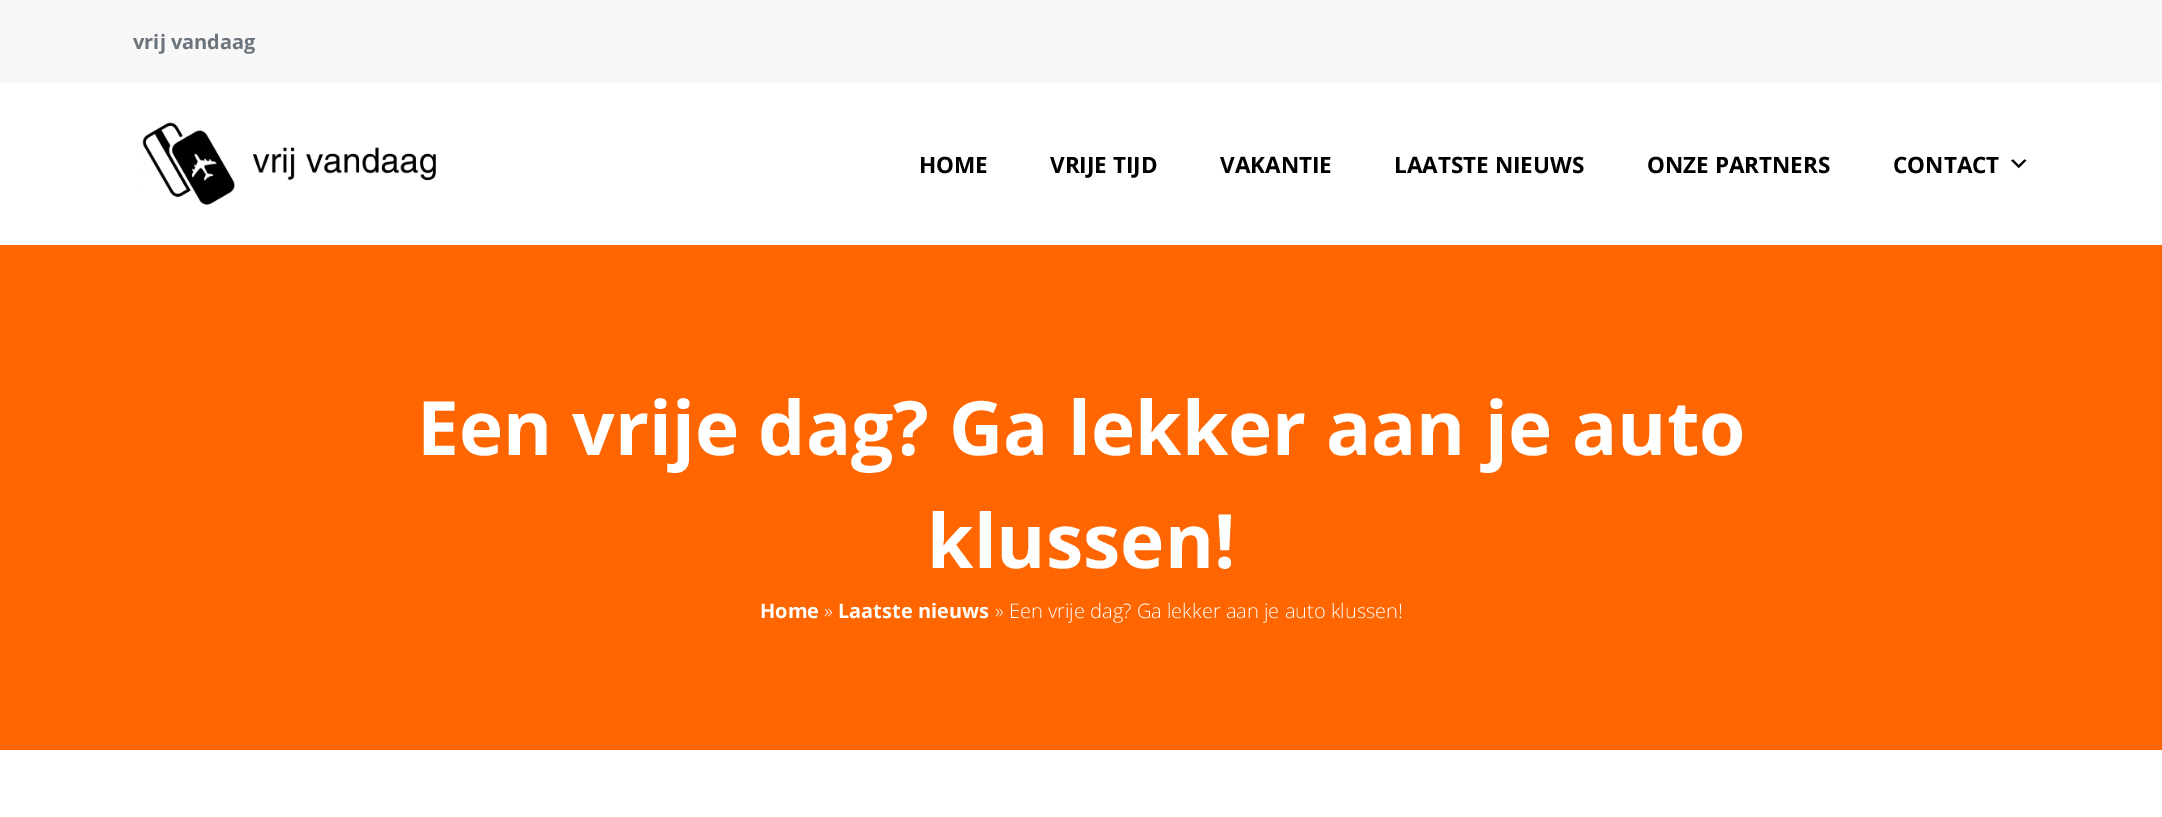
%!PS-Adobe-3.0
%%BoundingBox: 0 0 2162 817
%%LanguageLevel: 3
%%Pages: 1
%%EndComments
%%BeginProlog
/setink { dup -16 bitshift 255 div exch dup -8 bitshift 255 and 255 div exch 255 and 255 div setrgbcolor } def
/usefont { [ exch dup neg 0 0 3 -1 roll 0 0 ] selectfont } def
/drawimage { 5 dict begin { /h /w /y /x /name } { exch def } forall
  gsave x y translate w h scale
  w h 8 [w 0 0 h 0 0] name (r) file false 3 colorimage grestore end } def
%%EndProlog
%%BeginSetup
<< /PageSize [2162 817] >> setpagedevice
%%EndSetup
%%Page: 1 1
0 817 translate 1 -1 scale
4 setmiterlimit
16#FFFFFF setink
0 0 2162 817 rectfill
16#F8F8F8 setink
0 0 2162 83 rectfill
/OpenSans-Bold 20 usefont
16#6C757D setink
133 49 moveto (vrij vandaag) show
(img1.raw) 142 122 294 83 drawimage
/OpenSans-Bold 22.5 usefont
16#000000 setink
[
    [(HOME) 919 173]
    [(VRIJE TIJD) 1050 173]
    [(VAKANTIE) 1220 173]
    [(LAATSTE NIEUWS) 1394 173]
    [(ONZE PARTNERS) 1647 173]
    [(CONTACT) 1893 173]
] { aload pop moveto show } forall
(img2.raw) 2011 159 16 10 drawimage
16#FF6600 setink
0 245 2162 505 rectfill
/OpenSans-Bold 75 usefont
16#FFFFFF setink
417 455 moveto (Een vrije dag? Ga lekker aan je auto) show
927 568 moveto (klussen!) show
/OpenSans-Bold 20 usefont
760 618 moveto (Home) show
/OpenSans-Light 20 usefont
824 618 moveto (») show
/OpenSans-Bold 20 usefont
838 618 moveto (Laatste nieuws) show
/OpenSans-Light 20 usefont
995 618 moveto (» Een vrije dag? Ga lekker aan je auto klussen!) show
showpage
%%EOF
